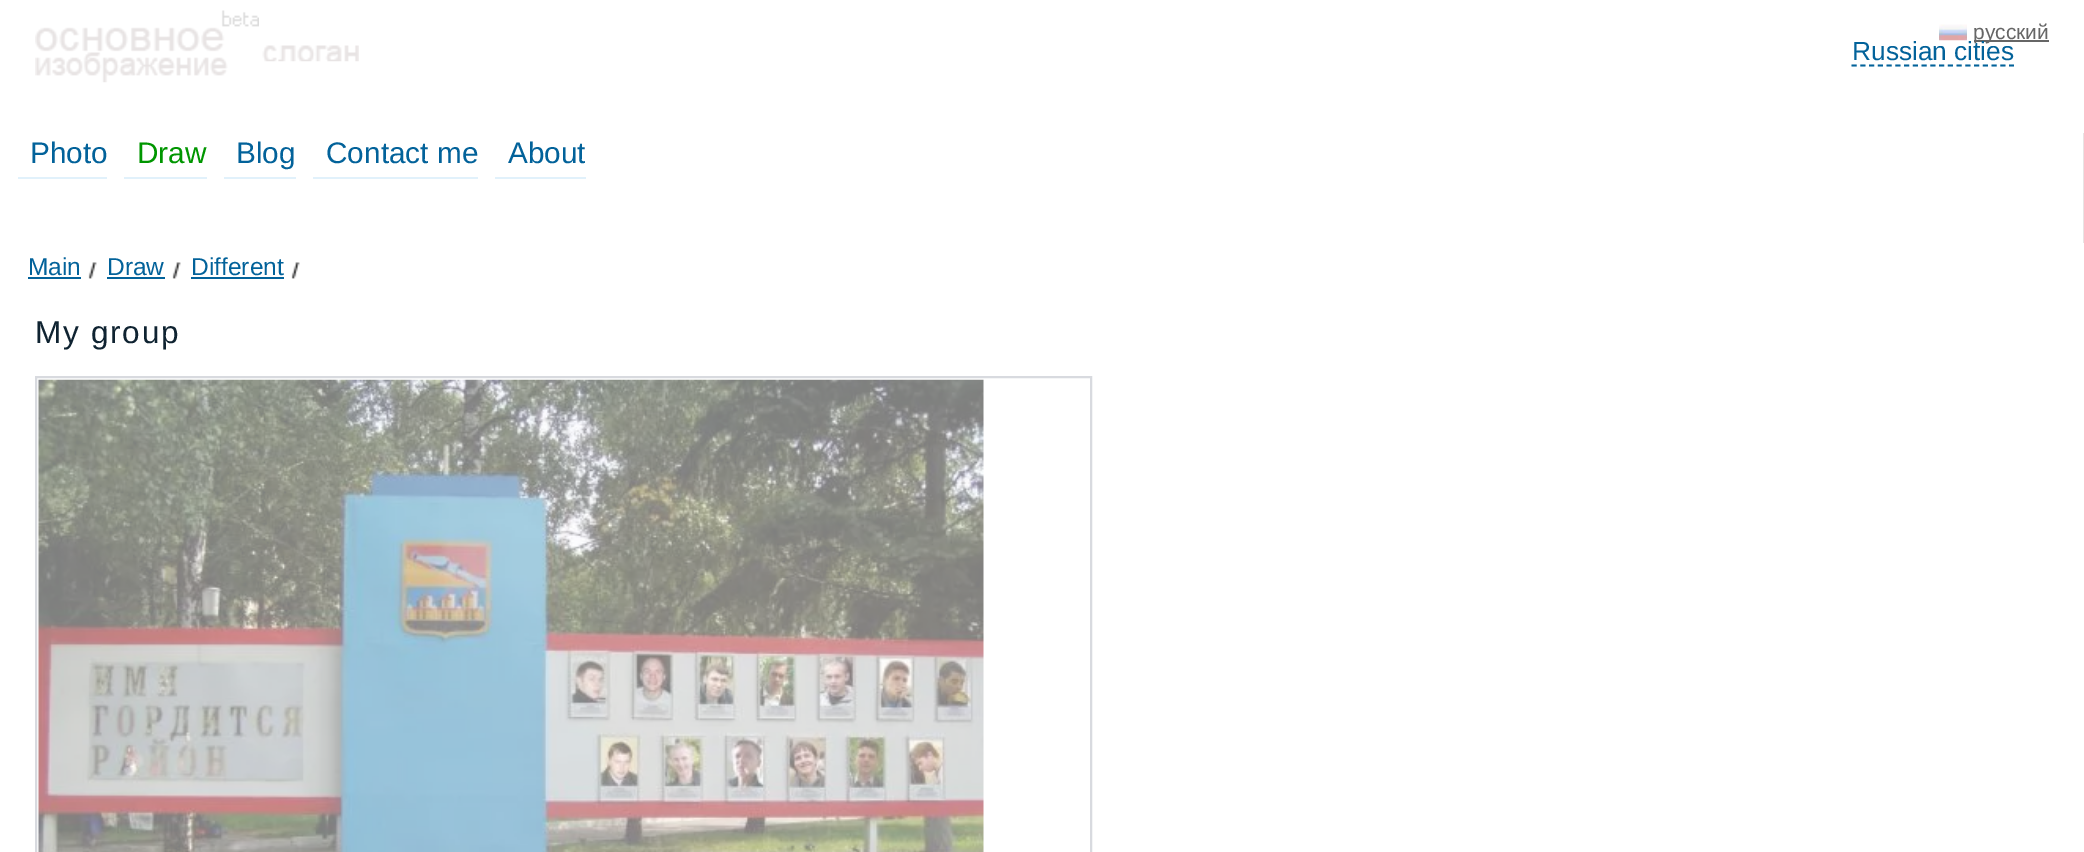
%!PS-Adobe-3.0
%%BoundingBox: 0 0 2084 852
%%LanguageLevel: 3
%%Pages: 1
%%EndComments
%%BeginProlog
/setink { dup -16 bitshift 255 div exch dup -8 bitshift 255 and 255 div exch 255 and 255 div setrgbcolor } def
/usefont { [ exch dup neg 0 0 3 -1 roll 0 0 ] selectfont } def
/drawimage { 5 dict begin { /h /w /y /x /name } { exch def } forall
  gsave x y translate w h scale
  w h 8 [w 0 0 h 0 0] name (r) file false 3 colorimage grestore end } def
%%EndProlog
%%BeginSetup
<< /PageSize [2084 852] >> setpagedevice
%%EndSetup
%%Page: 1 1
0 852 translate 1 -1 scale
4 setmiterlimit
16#FFFFFF setink
0 0 2084 852 rectfill
(img1.raw) 35 10 224 73 drawimage
(img2.raw) 1939 24 28 17 drawimage
16#666666 setink
1974 40 75 2 rectfill
/LiberationSans-Regular 21 usefont
1973 39 moveto (русский) show
(img3.raw) 262 45 97 17 drawimage
/LiberationSans-Regular 26.25 usefont
16#02629A setink
1852 60 moveto (Russian cities) show
1.8 setlinewidth
[5.25 3.5] 0 setdash
1851.5 65.5 moveto 2014 65.5 lineto stroke
16#E8E4E4 setink
2083 133 1 110 rectfill
16#E1F1FB setink
18 177 89 2 rectfill
/LiberationSans-Regular 29.75 usefont
16#02629A setink
30 163 moveto (Photo) show
16#E1F1FB setink
124 177 83 2 rectfill
16#009600 setink
137 163 moveto (Draw) show
16#E1F1FB setink
224 177 72 2 rectfill
16#02629A setink
236 163 moveto (Blog) show
16#E1F1FB setink
313 177 165 2 rectfill
16#02629A setink
326 163 moveto (Contact me) show
16#E1F1FB setink
495 177 91 2 rectfill
16#02629A setink
508 163 moveto (About) show
/LiberationSans-Regular 24.5 usefont
28 275 moveto (Main) show
28 277 53 2 rectfill
(img4.raw) 88 262 9 17 drawimage
107 275 moveto (Draw) show
107 277 58 2 rectfill
(img4.raw) 172 262 9 17 drawimage
191 275 moveto (Different) show
191 277 93 2 rectfill
(img4.raw) 291 262 9 17 drawimage
/LiberationSans-Regular 31.5 usefont
16#0F2331 setink
35 343 moveto 1.75 0 (My group) ashow
16#D8DADF setink
2 setlinewidth
[] 0 setdash
36 377 1055 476 rectstroke
(img5.raw) 38 379 946 473 drawimage
showpage
%%EOF
